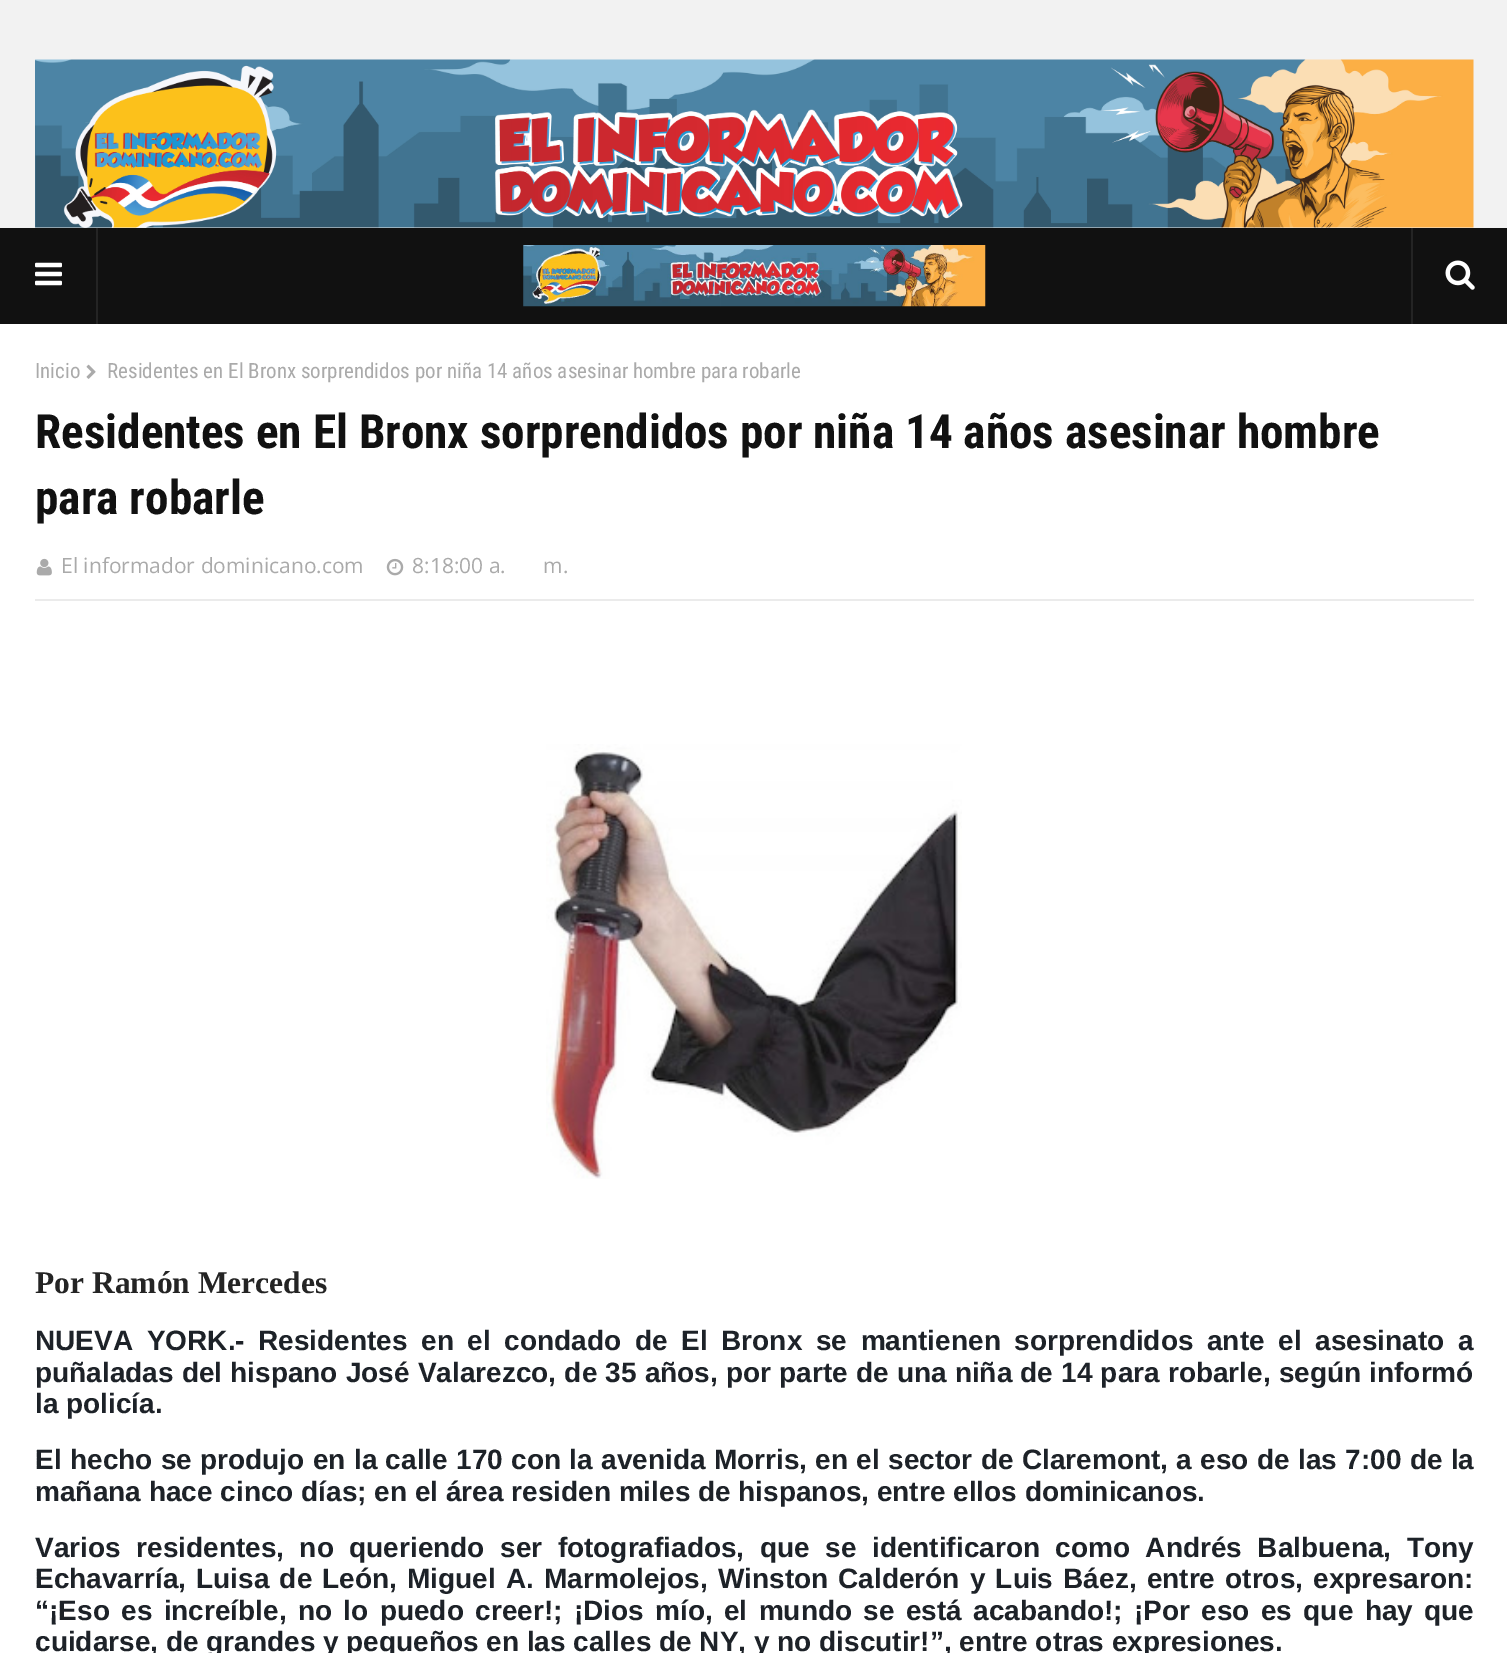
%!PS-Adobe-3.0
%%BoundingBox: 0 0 1507 1653
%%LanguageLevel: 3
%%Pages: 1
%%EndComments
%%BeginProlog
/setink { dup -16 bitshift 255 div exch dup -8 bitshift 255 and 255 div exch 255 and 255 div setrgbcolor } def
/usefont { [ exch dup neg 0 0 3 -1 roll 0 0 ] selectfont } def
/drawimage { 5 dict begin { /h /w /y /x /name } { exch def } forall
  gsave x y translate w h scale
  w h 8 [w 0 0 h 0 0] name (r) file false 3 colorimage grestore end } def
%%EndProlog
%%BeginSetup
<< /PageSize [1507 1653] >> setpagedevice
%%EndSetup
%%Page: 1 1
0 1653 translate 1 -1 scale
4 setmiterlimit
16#FFFFFF setink
0 0 1507 1653 rectfill
16#F2F2F2 setink
0 0 1507 228 rectfill
(img1.raw) 35 59 1439 169 drawimage
16#111111 setink
0 228 1507 96 rectfill
16#242424 setink
96 228 2 96 rectfill
(img2.raw) 35 262 27 24 drawimage
(img3.raw) 523 245 463 62 drawimage
1411 228 2 96 rectfill
(img4.raw) 1445 260 30 30 drawimage
/RobotoCondensed-Regular 21 usefont
16#AAAAAA setink
35 378 moveto (Inicio) show
(img5.raw) 86 364 10 15 drawimage
107 378 moveto (Residentes en El Bronx sorprendidos por niña 14 años asesinar hombre para robarle) show
/RobotoCondensed-Bold 47.25 usefont
16#111111 setink
35 448 moveto (Residentes en El Bronx sorprendidos por niña 14 años asesinar hombre) show
35 514 moveto (para robarle) show
16#EBEBEB setink
35 599 1439 2 rectfill
(img6.raw) 36 558 16 18 drawimage
/OpenSans-Regular 21 usefont
16#AAAAAA setink
61 573 moveto (El informador dominicano.com) show
(img7.raw) 386 558 18 18 drawimage
412 573 moveto (8:18:00 a. m.) show
(img8.raw) 546 744 416 435 drawimage
/LiberationSerif-Bold 31.5 usefont
16#242424 setink
35 1293 moveto (Por Ramón Mercedes) show
/LiberationSans-Bold 28 usefont
16#1D2228 setink
35 1350 moveto 5.9 0 32 (NUEVA YORK.-) widthshow
258 1350 moveto 5.9 0 32 (Residentes en el condado de El Bronx se mantienen sorprendidos ante el asesinato a) widthshow
35 1382 moveto 0.4 0 32 (puñaladas del hispano José Valarezco, de 35 años, por parte de una niña de 14 para robarle, según informó) widthshow
35 1413 moveto (la policía.) show
35 1469 moveto 0.6 0 32 (El hecho se produjo en la calle 170 con la avenida Morris, en el sector de Claremont, a eso de las 7:00 de la) widthshow
35 1501 moveto (mañana hace cinco días; en el área residen miles de hispanos, entre ellos dominicanos.) show
35 1557 moveto 7.75 0 32 (Varios residentes, no queriendo ser fotografiados, que se identificaron como Andrés Balbuena, Tony) widthshow
35 1588 moveto 2.4 0 32 (Echavarría, Luisa de León, Miguel A. Marmolejos, Winston Calderón y Luis Báez, entre otros, expresaron:) widthshow
35 1620 moveto 3.6 0 32 (“¡Eso es increíble, no lo puedo creer!; ¡Dios mío, el mundo se está acabando!; ¡Por eso es que hay que) widthshow
35 1651 moveto (cuidarse, de grandes y pequeños en las calles de NY, y no discutir!”, entre otras expresiones.) show
showpage
%%EOF
